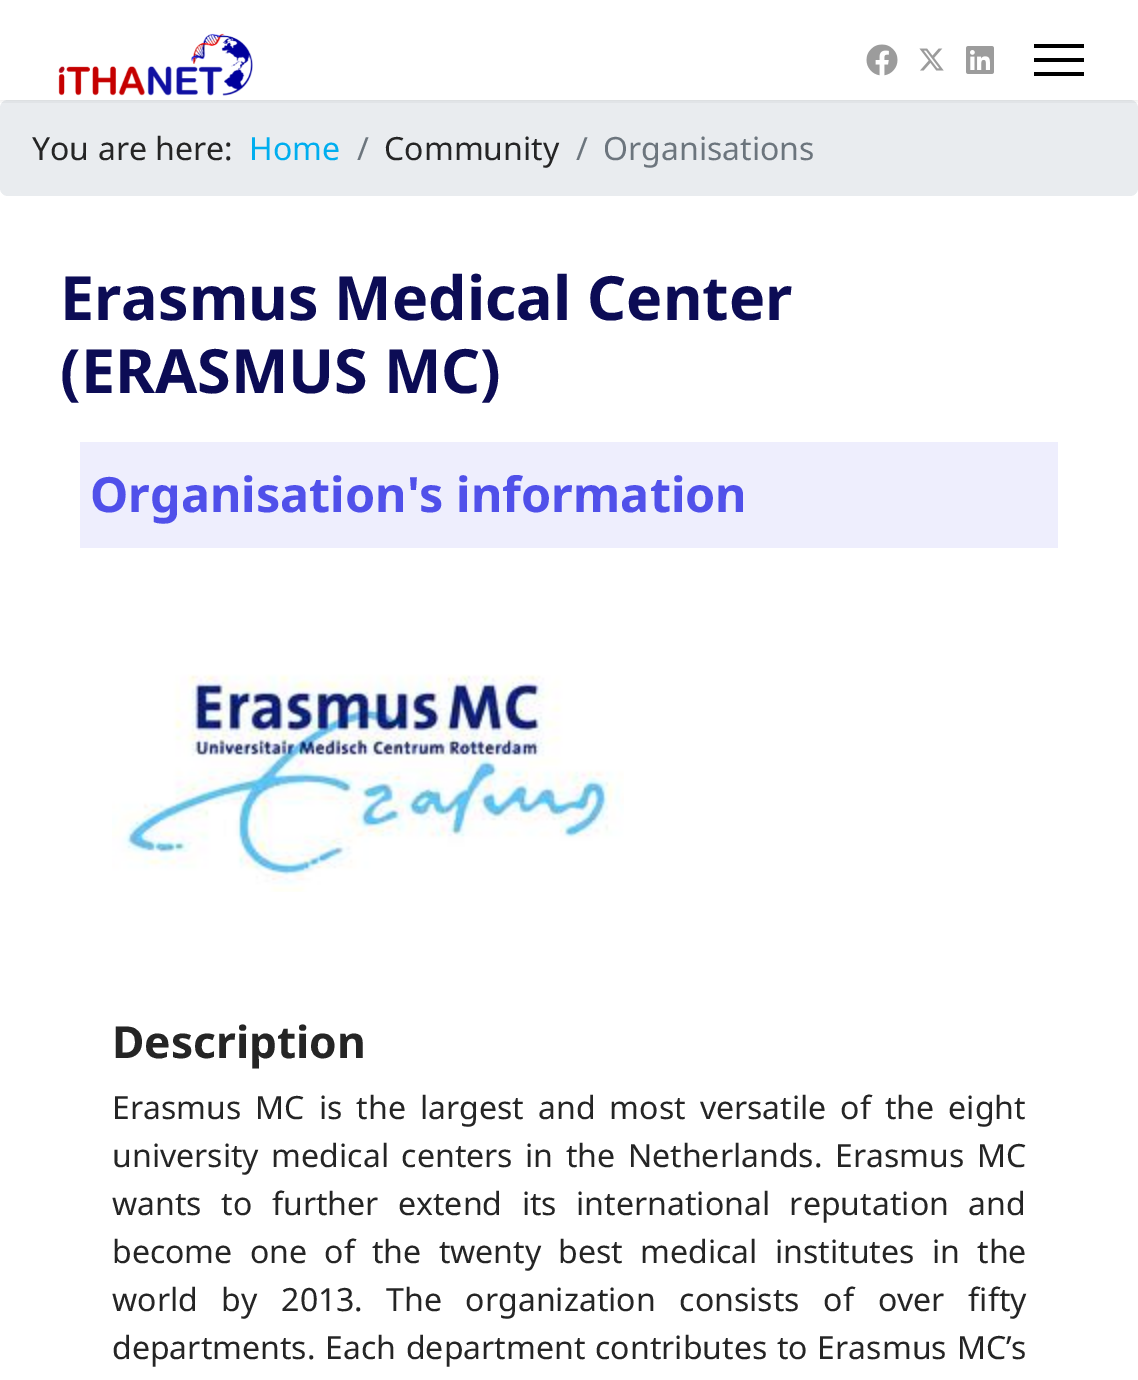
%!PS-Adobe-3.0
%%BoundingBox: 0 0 1138 1380
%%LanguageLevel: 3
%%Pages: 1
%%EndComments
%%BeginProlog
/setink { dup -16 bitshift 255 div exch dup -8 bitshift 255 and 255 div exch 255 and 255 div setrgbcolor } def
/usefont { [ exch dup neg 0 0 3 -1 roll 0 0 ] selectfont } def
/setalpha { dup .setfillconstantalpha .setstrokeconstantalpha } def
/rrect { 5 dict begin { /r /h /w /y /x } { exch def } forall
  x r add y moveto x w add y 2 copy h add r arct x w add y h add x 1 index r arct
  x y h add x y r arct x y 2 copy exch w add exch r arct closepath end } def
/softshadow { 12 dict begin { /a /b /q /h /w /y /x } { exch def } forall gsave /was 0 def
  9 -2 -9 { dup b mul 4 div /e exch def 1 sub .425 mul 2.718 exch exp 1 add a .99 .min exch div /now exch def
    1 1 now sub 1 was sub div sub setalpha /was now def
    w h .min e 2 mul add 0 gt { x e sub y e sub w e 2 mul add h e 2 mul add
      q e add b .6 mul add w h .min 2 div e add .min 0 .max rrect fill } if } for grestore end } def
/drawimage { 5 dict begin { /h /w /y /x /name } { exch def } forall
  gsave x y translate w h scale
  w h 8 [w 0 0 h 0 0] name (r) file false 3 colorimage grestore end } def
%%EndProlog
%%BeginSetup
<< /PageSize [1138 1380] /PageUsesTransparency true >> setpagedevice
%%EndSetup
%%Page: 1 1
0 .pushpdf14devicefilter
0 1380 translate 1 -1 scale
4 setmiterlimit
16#FFFFFF setink
0 0 1138 1380 rectfill
16#E9ECEF setink
0 100 1138 96 8 rrect fill
gsave
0 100 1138 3 rectclip
16#000000 setink
0 0 1138 100 0 4 0.1 softshadow
grestore
(img1.raw) 58 33 195 63 drawimage
(img2.raw) 866 44 32 32 drawimage
(img3.raw) 919 48 25 23 drawimage
(img4.raw) 966 46 28 28 drawimage
[
    [1034 44 50 4 16#000000]
    [1034 58 50 4 16#000000]
    [1034 72 50 4 16#000000]
] { aload pop setink rectfill } forall
/NotoSans-Regular 32 usefont
16#252525 setink
32 160 moveto (You are here:) show
16#00AEEF setink
249 160 moveto (Home) show
16#6C757D setink
357 160 moveto (/) show
16#252525 setink
384 160 moveto (Community) show
16#6C757D setink
576 160 moveto (/) show
603 160 moveto (Organisations) show
/NotoSans-Bold 61 usefont
16#0C0C55 setink
60 320 moveto (Erasmus Medical Center) show
60 393 moveto (\(ERASMUS MC\)) show
16#EEEEFD setink
80 442 978 106 rectfill
/NotoSans-Bold 48.5 usefont
16#5050EA setink
90 512 moveto (Organisation's information) show
(img5.raw) 112 674 512 218 drawimage
/NotoSans-Bold 44.25 usefont
16#252525 setink
112 1058 moveto (Description) show
/NotoSans-Regular 32 usefont
112 1119 moveto 5.75 0 32 (Erasmus MC is the largest and most versatile of the eight) widthshow
112 1167 moveto 4.25 0 32 (university medical centers in the Netherlands. Erasmus MC) widthshow
112 1215 moveto 11.25 0 32 (wants to further extend its international reputation and) widthshow
112 1263 moveto 9 0 32 (become one of the twenty best medical institutes in the) widthshow
112 1311 moveto 15.5 0 32 (world by 2013.) widthshow
386 1311 moveto 15.5 0 32 (The organization consists of over fifty) widthshow
112 1359 moveto 1.5 0 32 (departments. Each department contributes to Erasmus MC’s) widthshow
.poppdf14devicefilter showpage
%%EOF
